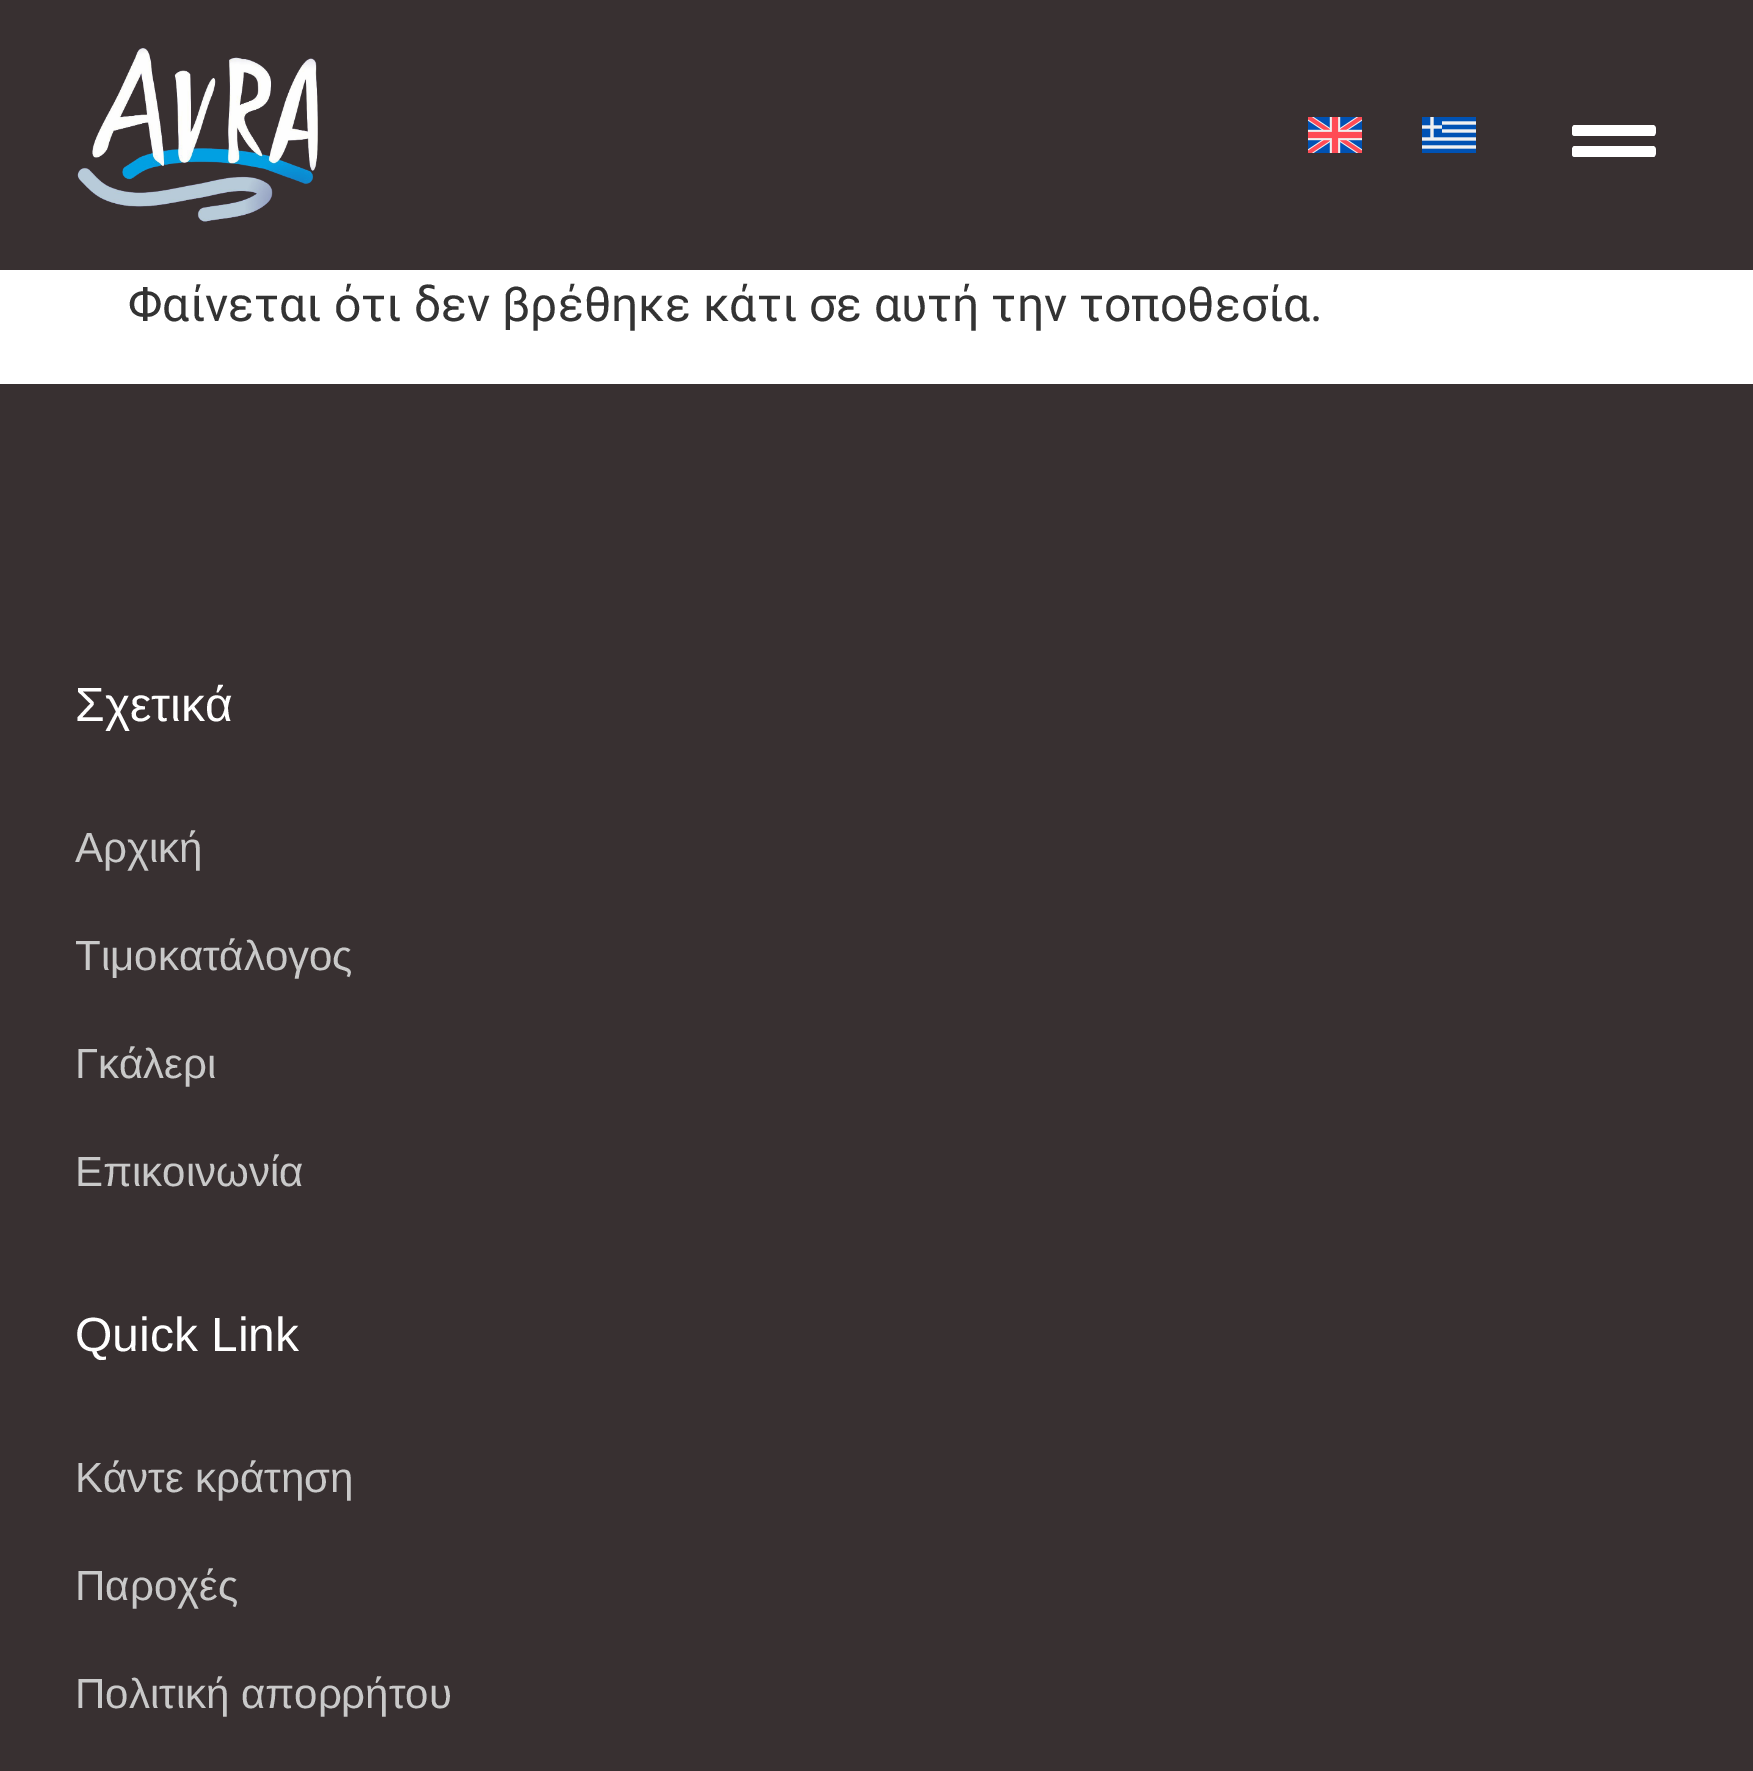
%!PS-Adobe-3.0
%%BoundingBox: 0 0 1753 1771
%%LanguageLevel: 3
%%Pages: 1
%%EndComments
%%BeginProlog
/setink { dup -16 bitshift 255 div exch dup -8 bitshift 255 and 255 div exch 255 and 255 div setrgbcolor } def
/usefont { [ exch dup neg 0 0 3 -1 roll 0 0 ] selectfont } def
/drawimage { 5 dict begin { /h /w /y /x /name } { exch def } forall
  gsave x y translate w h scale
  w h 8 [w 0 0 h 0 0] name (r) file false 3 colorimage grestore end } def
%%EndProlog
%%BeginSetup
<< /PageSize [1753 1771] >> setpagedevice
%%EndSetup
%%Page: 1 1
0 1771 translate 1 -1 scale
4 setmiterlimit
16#FFFFFF setink
0 0 1753 1771 rectfill
16#383031 setink
0 0 1753 270 rectfill
(img1.raw) 77 48 241 174 drawimage
(img2.raw) 1308 117 54 36 drawimage
(img3.raw) 1422 117 54 36 drawimage
gsave
1572 99 84 84 rectclip
16#FFFFFF setink
1653 146 moveto 1574 146 lineto 1572 147 1572 149 1572 151 curveto 1572 153 1571 157 1575 157 curveto 1654 157 lineto 1657 155 1657 146 1653 146 curveto closepath 1653 125 moveto 1574 125 lineto 1572 126 1572 128 1572 130 curveto 1572 132 1571 136 1575 136 curveto 1654 136 lineto 1657 134 1657 125 1653 125 curveto closepath fill
grestore
/Roboto-Regular 48 usefont
16#333333 setink
128 321 moveto (Φαίνεται ότι δεν βρέθηκε κάτι σε αυτή την τοποθεσία.) show
16#383031 setink
0 384 1753 1387 rectfill
/LiberationSans-Regular 48 usefont
16#FFFFFF setink
75 721 moveto (Σχετικά) show
/LiberationSans-Regular 42 usefont
16#C9C9C9 setink
[
    [(Αρχική) 75 862]
    [(Τιμοκατάλογος) 75 970]
    [(Γκάλερι) 75 1078]
    [(Επικοινωνία) 75 1186]
] { aload pop moveto show } forall
/LiberationSans-Regular 48 usefont
16#FFFFFF setink
75 1351 moveto (Quick Link) show
/LiberationSans-Regular 42 usefont
16#C9C9C9 setink
[
    [(Κάντε κράτηση) 75 1492]
    [(Παροχές) 75 1600]
    [(Πολιτική απορρήτου) 75 1708]
] { aload pop moveto show } forall
showpage
%%EOF
